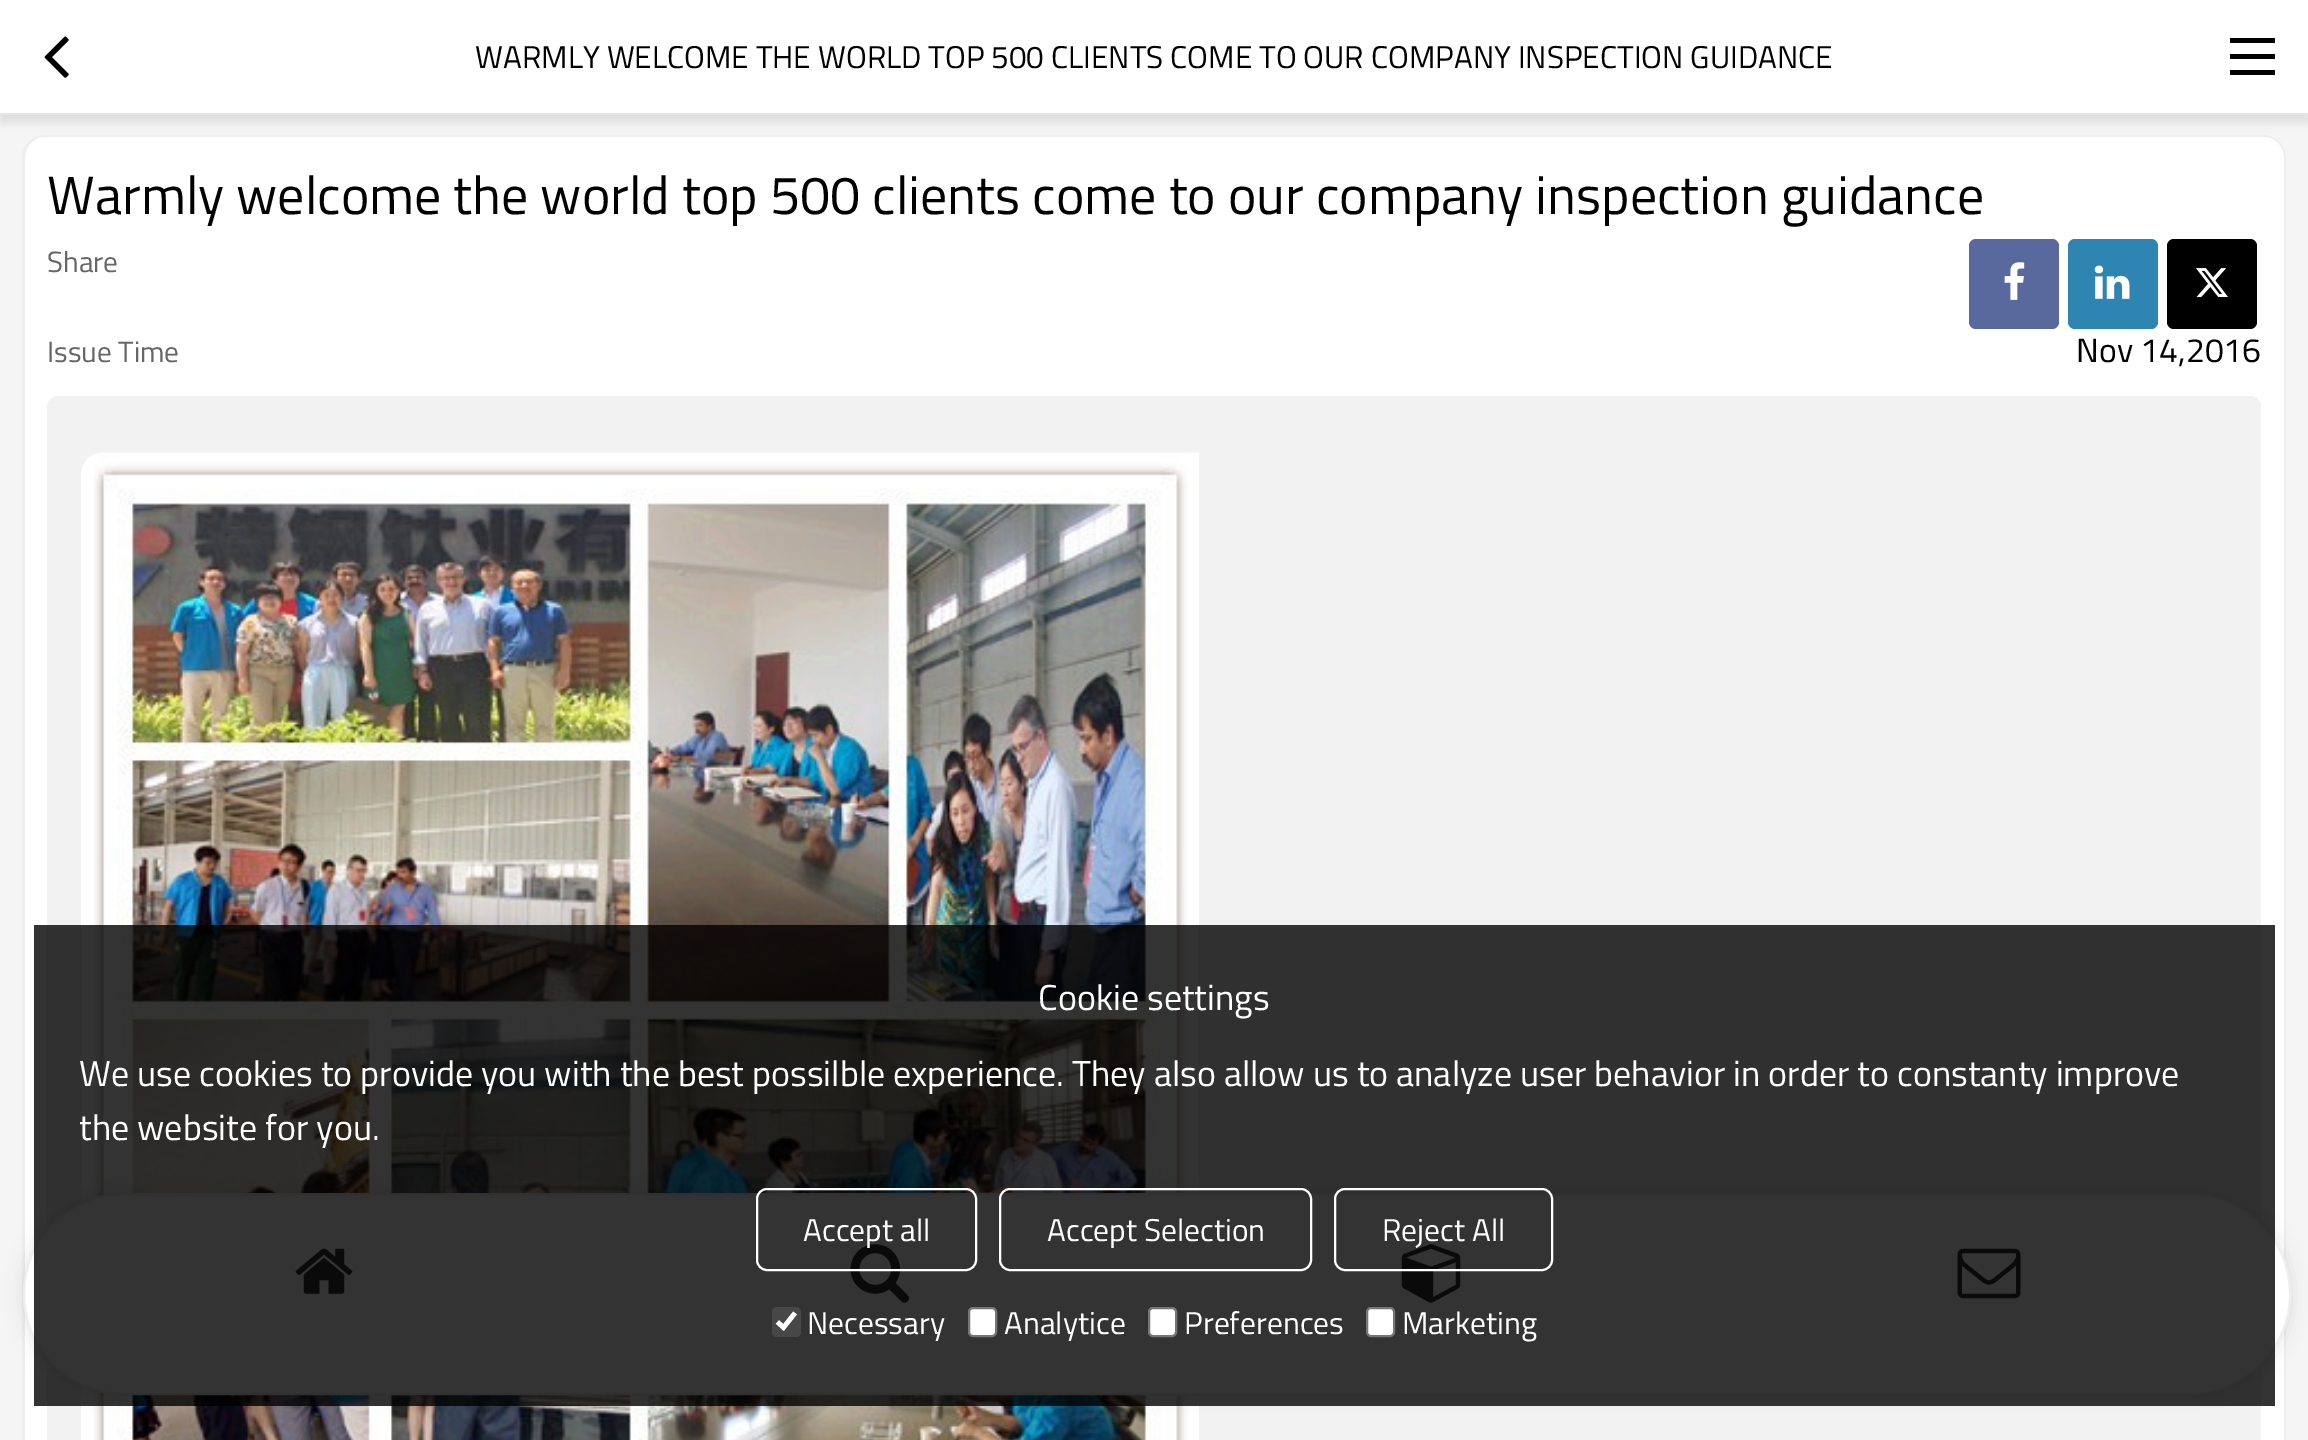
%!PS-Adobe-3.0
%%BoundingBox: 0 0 2308 1440
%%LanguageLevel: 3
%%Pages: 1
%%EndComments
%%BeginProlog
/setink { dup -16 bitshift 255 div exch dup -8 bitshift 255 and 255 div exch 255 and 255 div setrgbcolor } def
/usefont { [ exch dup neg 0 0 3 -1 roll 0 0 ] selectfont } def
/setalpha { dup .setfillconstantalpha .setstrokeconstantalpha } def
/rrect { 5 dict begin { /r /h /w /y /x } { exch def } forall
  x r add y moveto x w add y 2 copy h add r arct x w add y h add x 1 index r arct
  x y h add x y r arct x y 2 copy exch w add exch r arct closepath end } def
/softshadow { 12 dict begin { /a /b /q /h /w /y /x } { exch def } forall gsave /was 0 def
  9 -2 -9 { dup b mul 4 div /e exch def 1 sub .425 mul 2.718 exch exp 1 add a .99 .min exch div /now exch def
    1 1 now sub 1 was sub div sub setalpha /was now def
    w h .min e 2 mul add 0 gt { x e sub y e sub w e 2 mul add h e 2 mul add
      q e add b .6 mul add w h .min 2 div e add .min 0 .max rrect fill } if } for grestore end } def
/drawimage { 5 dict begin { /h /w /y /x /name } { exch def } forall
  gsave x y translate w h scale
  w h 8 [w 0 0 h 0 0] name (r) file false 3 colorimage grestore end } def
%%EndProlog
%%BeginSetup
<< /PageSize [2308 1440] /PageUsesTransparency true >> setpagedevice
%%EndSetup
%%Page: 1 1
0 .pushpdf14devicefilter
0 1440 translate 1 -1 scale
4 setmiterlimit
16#F5F5F5 setink
0 0 2308 1440 rectfill
16#FFFFFF setink
23 135 2263 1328 23 rrect fill
16#EEEEEE setink
45 135 moveto 2264 135 lineto 2276 135 2286 145 2286 158 curveto 2286 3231 lineto 2286 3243 2276 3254 2264 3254 curveto 45 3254 lineto 33 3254 22 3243 22 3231 curveto 22 158 lineto 22 145 33 135 45 135 curveto closepath 45 137 moveto 2264 137 lineto 2275 137 2284 146 2284 158 curveto 2284 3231 lineto 2284 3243 2275 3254 2264 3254 curveto 45 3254 lineto 34 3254 25 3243 25 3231 curveto 25 158 lineto 25 146 34 137 45 137 curveto closepath eofill
16#000000 setink
0 7 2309 115 0 5.5 0.1 softshadow
16#FFFFFF setink
0 0 2308 113 rectfill
16#E5E5E5 setink
0 113 2308 2 rectfill
(img1.raw) 44 36 25 42 drawimage
/TitilliumWeb-Regular 31.5 usefont
16#000000 setink
475 68 moveto (WARMLY WELCOME THE WORLD TOP 500 CLIENTS COME TO OUR COMPANY INSPECTION GUIDANCE) show
[
    [2230 38 45 5 16#000000]
    [2230 54 45 5 16#000000]
    [2230 70 45 5 16#000000]
] { aload pop setink rectfill } forall
/TitilliumWeb-Regular 54 usefont
47 214 moveto (Warmly welcome the world top 500 clients come to our company inspection guidance) show
/TitilliumWeb-Regular 29.25 usefont
16#666666 setink
47 272 moveto (Share) show
16#59699E setink
1969 239 90 90 7 rrect fill
(img2.raw) 2004 262 21 38 drawimage
16#2F85B2 setink
2068 239 90 90 7 rrect fill
(img3.raw) 2094 265 36 34 drawimage
16#000000 setink
2167 239 90 90 7 rrect fill
(img4.raw) 2196 268 32 29 drawimage
16#666666 setink
47 362 moveto (Issue Time) show
/TitilliumWeb-Regular 33.75 usefont
16#000000 setink
2076 362 moveto (Nov 14,2016) show
16#F2F2F2 setink
47 396 2214 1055 11 rrect fill
(img5.raw) 81 452 1118 988 drawimage
16#000000 setink
23 1193 2268 202 101 9 0.1 softshadow
16#FFFFFF setink
24 1194 2266 200 100 rrect gsave fill grestore
16#EEEEEE setink
2 setlinewidth
stroke
(img6.raw) 295 1248 58 46 drawimage
(img7.raw) 850 1244 59 59 drawimage
(img8.raw) 1401 1244 60 59 drawimage
(img9.raw) 1957 1248 64 51 drawimage
0.8 setalpha
16#000000 setink
34 925 2241 481 rectfill
/TitilliumWeb-Regular 36 usefont
1 setalpha
16#FFFFFF setink
[
    [(Cookie settings) 1038 1010]
    [(We use cookies to provide you with the best possilble experience. They also allow us to analyze user behavior in order to constanty improve) 79 1086]
    [(the website for you.) 79 1140]
] { aload pop moveto show } forall
757 1189 219 81 10 rrect stroke
/TitilliumWeb-Regular 31.5 usefont
803 1241 moveto (Accept all) show
1000 1189 311 81 10 rrect stroke
1047 1241 moveto (Accept Selection) show
1335 1189 217 81 10 rrect stroke
1382 1241 moveto (Reject All) show
16#474747 setink
772 1307 29 30 5 rrect fill
16#FFFFFF setink
4.7 setlinewidth
777.5 1322 moveto 783.5 1327.5 lineto 795 1313 lineto stroke
807 1334 moveto (Necessary) show
969 1308 27 28 4 rrect gsave fill grestore
16#767676 setink
2 setlinewidth
stroke
16#FFFFFF setink
1004 1334 moveto (Analytice) show
1149 1308 27 28 4 rrect gsave fill grestore
16#767676 setink
stroke
16#FFFFFF setink
1184 1334 moveto (Preferences) show
1367 1308 27 28 4 rrect gsave fill grestore
16#767676 setink
stroke
16#FFFFFF setink
1402 1334 moveto (Marketing) show
.poppdf14devicefilter showpage
%%EOF
